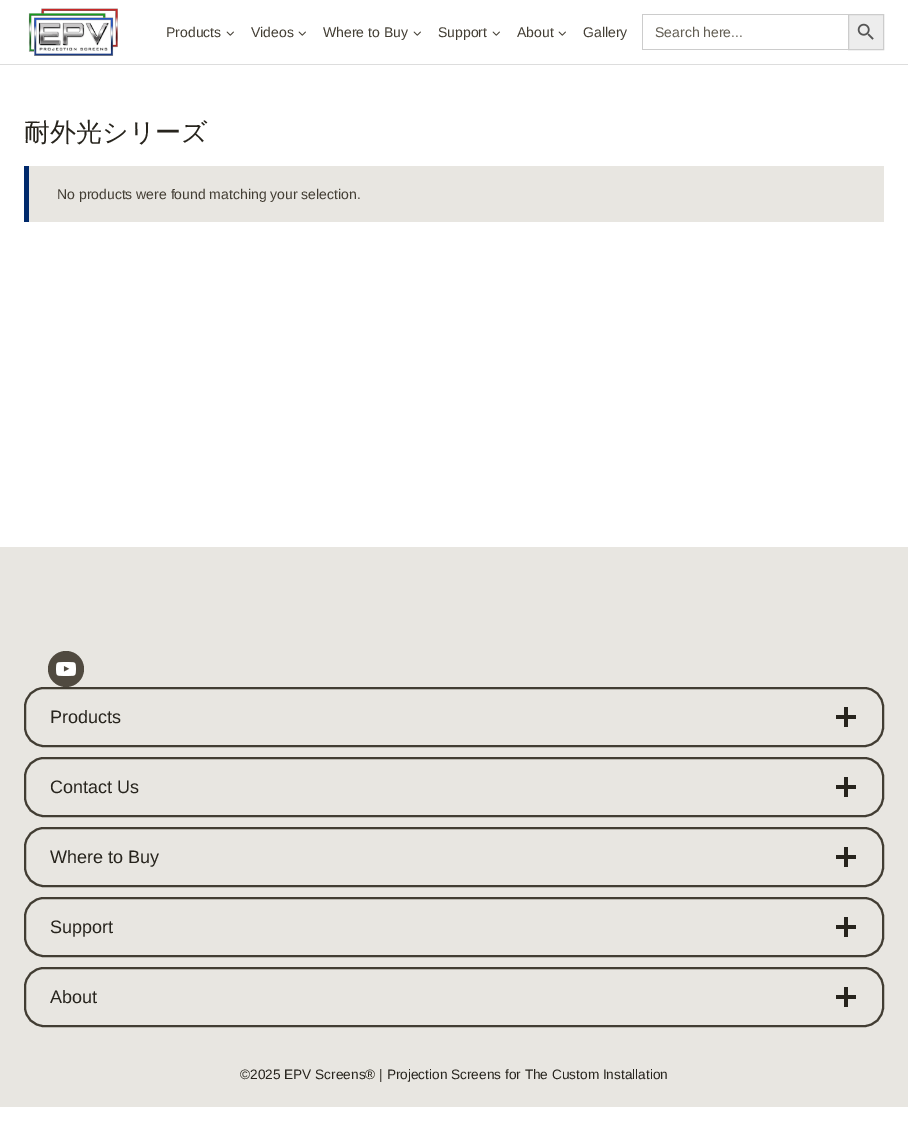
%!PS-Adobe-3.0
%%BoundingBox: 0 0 908 1135
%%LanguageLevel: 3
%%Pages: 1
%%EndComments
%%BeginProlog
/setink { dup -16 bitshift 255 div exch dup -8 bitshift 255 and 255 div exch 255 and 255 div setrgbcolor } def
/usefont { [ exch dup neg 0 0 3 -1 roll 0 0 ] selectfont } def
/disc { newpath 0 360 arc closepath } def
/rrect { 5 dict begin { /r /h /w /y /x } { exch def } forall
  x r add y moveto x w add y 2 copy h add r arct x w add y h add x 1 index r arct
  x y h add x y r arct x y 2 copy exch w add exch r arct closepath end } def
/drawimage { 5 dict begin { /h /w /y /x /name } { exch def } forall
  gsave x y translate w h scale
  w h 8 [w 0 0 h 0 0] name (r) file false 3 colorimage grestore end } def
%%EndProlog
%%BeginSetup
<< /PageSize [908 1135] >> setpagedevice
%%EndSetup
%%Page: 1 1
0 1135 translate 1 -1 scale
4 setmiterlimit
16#FFFFFF setink
0 0 908 1135 rectfill
16#DDDDDD setink
0 64 908 1 rectfill
(img1.raw) 28 8 90 48 drawimage
/LiberationSans-Regular 14 usefont
16#423D33 setink
166 37 moveto (Products) show
(img2.raw) 226 31 8 5 drawimage
251 37 moveto (Videos) show
(img2.raw) 298 31 8 5 drawimage
323 37 moveto (Where to Buy) show
(img2.raw) 413 31 8 5 drawimage
438 37 moveto (Support) show
(img2.raw) 492 31 8 5 drawimage
517 37 moveto (About) show
(img2.raw) 558 31 8 5 drawimage
583 37 moveto (Gallery) show
[
    [642 14 206 1 16#CCCCCC]
    [642 49 206 1 16#CCCCCC]
    [642 14 1 36 16#CCCCCC]
] { aload pop setink rectfill } forall
16#625D52 setink
655 37 moveto (Search here...) show
16#EDEDED setink
848.5 14.5 moveto 883.5 14.5 lineto 883.5 49.5 lineto 848.5 49.5 lineto closepath gsave fill grestore
16#CCCCCC setink
stroke
(img3.raw) 857 23 17 17 drawimage
/WenQuanYiZenHei-Medium 26 usefont
16#27241D setink
24 141 moveto (耐外光シリーズ) show
16#E8E6E1 setink
29 166 855 56 rectfill
16#00296B setink
24 166 5 56 rectfill
/LiberationSans-Regular 14 usefont
16#423D33 setink
57 199 moveto (No products were found matching your selection.) show
16#E8E6E1 setink
0 547 908 560 rectfill
16#504A40 setink
66 669 18 disc fill
(img4.raw) 56 662 20 14 drawimage
16#423D33 setink
2 setlinewidth
25 688 858 58 19 rrect stroke
/LiberationSans-Regular 18 usefont
16#27241D setink
50 723 moveto (Products) show
844 707 4 20 rectfill
836 715 20 4 rectfill
16#423D33 setink
25 758 858 58 19 rrect stroke
16#27241D setink
50 793 moveto (Contact Us) show
844 777 4 20 rectfill
836 785 20 4 rectfill
16#423D33 setink
25 828 858 58 19 rrect stroke
16#27241D setink
50 863 moveto (Where to Buy) show
844 847 4 20 rectfill
836 855 20 4 rectfill
16#423D33 setink
25 898 858 58 19 rrect stroke
16#27241D setink
50 933 moveto (Support) show
844 917 4 20 rectfill
836 925 20 4 rectfill
16#423D33 setink
25 968 858 58 19 rrect stroke
16#27241D setink
50 1003 moveto (About) show
844 987 4 20 rectfill
836 995 20 4 rectfill
/LiberationSans-Regular 13.65 usefont
240 1079 moveto (©2025 EPV Screens® | Projection Screens for The Custom Installation) show
showpage
%%EOF
